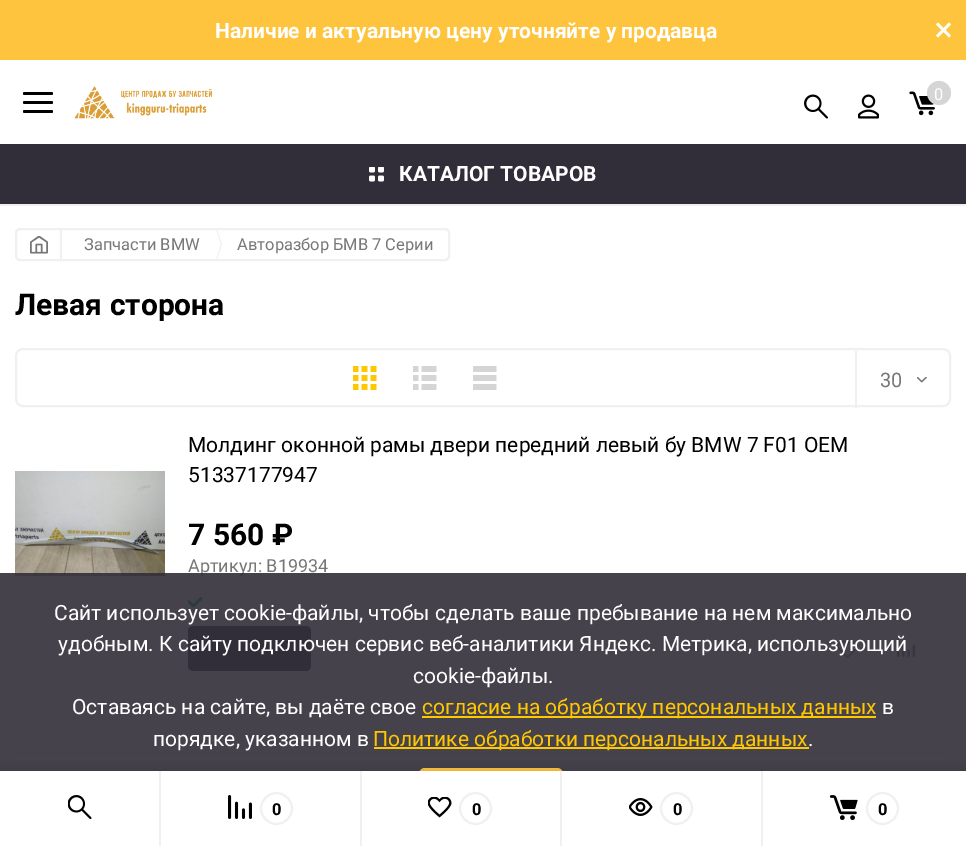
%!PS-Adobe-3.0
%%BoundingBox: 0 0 966 846
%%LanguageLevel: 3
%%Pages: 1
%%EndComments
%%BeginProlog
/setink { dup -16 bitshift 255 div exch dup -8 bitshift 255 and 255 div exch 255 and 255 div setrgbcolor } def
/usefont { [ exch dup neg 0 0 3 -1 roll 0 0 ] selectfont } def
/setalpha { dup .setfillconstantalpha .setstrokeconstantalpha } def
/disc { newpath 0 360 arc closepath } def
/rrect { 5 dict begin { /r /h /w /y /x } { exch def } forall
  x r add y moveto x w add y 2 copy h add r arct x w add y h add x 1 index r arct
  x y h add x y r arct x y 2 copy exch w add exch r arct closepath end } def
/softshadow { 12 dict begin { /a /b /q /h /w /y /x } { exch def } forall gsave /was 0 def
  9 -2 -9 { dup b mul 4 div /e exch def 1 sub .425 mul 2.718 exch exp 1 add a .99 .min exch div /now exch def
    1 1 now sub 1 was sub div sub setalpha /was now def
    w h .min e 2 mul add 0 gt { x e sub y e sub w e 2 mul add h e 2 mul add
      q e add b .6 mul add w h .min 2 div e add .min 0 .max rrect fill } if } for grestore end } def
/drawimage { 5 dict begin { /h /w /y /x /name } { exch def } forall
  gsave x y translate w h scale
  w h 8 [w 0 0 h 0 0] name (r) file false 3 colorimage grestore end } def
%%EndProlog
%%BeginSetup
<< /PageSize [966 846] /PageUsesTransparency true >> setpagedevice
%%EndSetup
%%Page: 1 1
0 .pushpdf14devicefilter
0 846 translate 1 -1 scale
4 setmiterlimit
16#FFFFFF setink
0 0 966 846 rectfill
16#FFC43D setink
0 0 966 60 rectfill
/Roboto-Bold 21 usefont
16#FFFFFF setink
215 38 moveto (Наличие и актуальную цену уточняйте у продавца) show
949 22.5 moveto 951 24.5 lineto 938 37.5 lineto 936 35.5 lineto closepath fill
936 24.5 moveto 938 22.5 lineto 951 35.5 lineto 949 37.5 lineto closepath fill
16#F0F0F0 setink
0 204 966 2 rectfill
16#000000 setink
23 101 30 3 1.5 rrect fill
23 92 30 3 1.5 rrect fill
23 110 30 3 1.5 rrect fill
(img1.raw) 74 86 139 33 drawimage
(img2.raw) 804 94 24 25 drawimage
(img3.raw) 858 94 21 25 drawimage
(img4.raw) 909 91 26 25 drawimage
16#D5D5D5 setink
939 93 12 disc fill
/Roboto-Regular 16.5 usefont
16#FFFFFF setink
934 100 moveto (0) show
16#312E39 setink
0 144 966 60 rectfill
(img5.raw) 369 167 15 15 drawimage
/Roboto-Bold 21 usefont
16#FFFFFF setink
399 181 moveto (КАТАЛОГ ТОВАРОВ) show
16#F0F0F0 setink
2 setlinewidth
16 229 433 31 4 rrect stroke
60 230 2 30 rectfill
(img6.raw) 30 236 18 18 drawimage
/Roboto-Regular 16.5 usefont
16#777777 setink
84 250 moveto (Запчасти BMW) show
16#F0F0F0 setink
216 229.5 moveto 217 229.5 lineto 222 244.5 lineto 217 259.5 lineto 216 259.5 lineto 221 244.5 lineto closepath eofill
16#777777 setink
237 250 moveto (Авторазбор БМВ 7 Серии) show
/Roboto-Bold 30 usefont
16#000000 setink
15 315 moveto (Левая сторона) show
16#F0F0F0 setink
16 349 934 57 7 rrect stroke
(img7.raw) 353 366 24 24 drawimage
(img8.raw) 413 366 24 24 drawimage
(img9.raw) 473 366 24 24 drawimage
855 351 2 57 rectfill
/Roboto-Regular 20 usefont
16#777777 setink
880 387 moveto (30) show
(img10.raw) 917 377 10 6 drawimage
16#F0F0F0 setink
15 752 936 2 rectfill
/Roboto-Regular 21 usefont
16#000000 setink
188 452 moveto (Молдинг оконной рамы двери передний левый бу BMW 7 F01 OEM) show
188 482 moveto (51337177947) show
(img11.raw) 15 471 150 105 drawimage
/Roboto-Bold 30 usefont
188 545 moveto (7 560 ₽) show
/Roboto-Regular 18 usefont
16#777777 setink
188 572 moveto (Артикул: B19934) show
(img12.raw) 188 597 15 11 drawimage
16#312E39 setink
188 626 123 45 5 rrect fill
(img13.raw) 837 641 21 17 drawimage
(img14.raw) 897 639 18 18 drawimage
0.9 setalpha
0 573 966 198 rectfill
1 setalpha
16#FFC700 setink
374 747 435 2 rectfill
16#FFC43D setink
419 768 144 56 6 rrect fill
16#000000 setink
0 768 966 75 0 7 0.11 softshadow
16#FFFFFF setink
0 771 966 75 rectfill
16#F0F0F0 setink
159 771 2 75 rectfill
(img15.raw) 68 795 24 24 drawimage
360 771 2 75 rectfill
(img16.raw) 228 795 24 24 drawimage
276.5 808.5 15.5 disc stroke
/Roboto-Bold 16.5 usefont
16#000000 setink
272 815 moveto -2 0 (0) ashow
16#F0F0F0 setink
560 771 2 75 rectfill
(img17.raw) 428 797 24 21 drawimage
475.5 808.5 15.5 disc stroke
16#000000 setink
472 815 moveto -2 0 (0) ashow
16#F0F0F0 setink
761 771 2 75 rectfill
(img18.raw) 629 798 24 18 drawimage
676.5 808.5 15.5 disc stroke
16#000000 setink
673 815 moveto -2 0 (0) ashow
(img19.raw) 830 795 28 25 drawimage
16#F0F0F0 setink
882.5 808.5 15.5 disc stroke
16#000000 setink
878 815 moveto -2 0 (0) ashow
/Roboto-Regular 21 usefont
16#FFFFFF setink
[
    [(Сайт использует cookie-файлы, чтобы сделать ваше пребывание на нем максимально) 54 620]
    [(удобным. К cайту подключен сервис веб-аналитики Яндекс. Метрика, использующий) 58 651]
    [(cookie-файлы.) 413 683]
    [(Оставаясь на сайте, вы даёте свое) 72 714]
] { aload pop moveto show } forall
16#FFC700 setink
422 716 454 2 rectfill
422 714 moveto (согласие на обработку персональных данных) show
16#FFFFFF setink
882 714 moveto (в) show
153 746 moveto (порядке, указанном в) show
16#FFC700 setink
373 746 moveto (Политике обработки персональных данных) show
16#FFFFFF setink
808 746 moveto (.) show
.poppdf14devicefilter showpage
%%EOF
